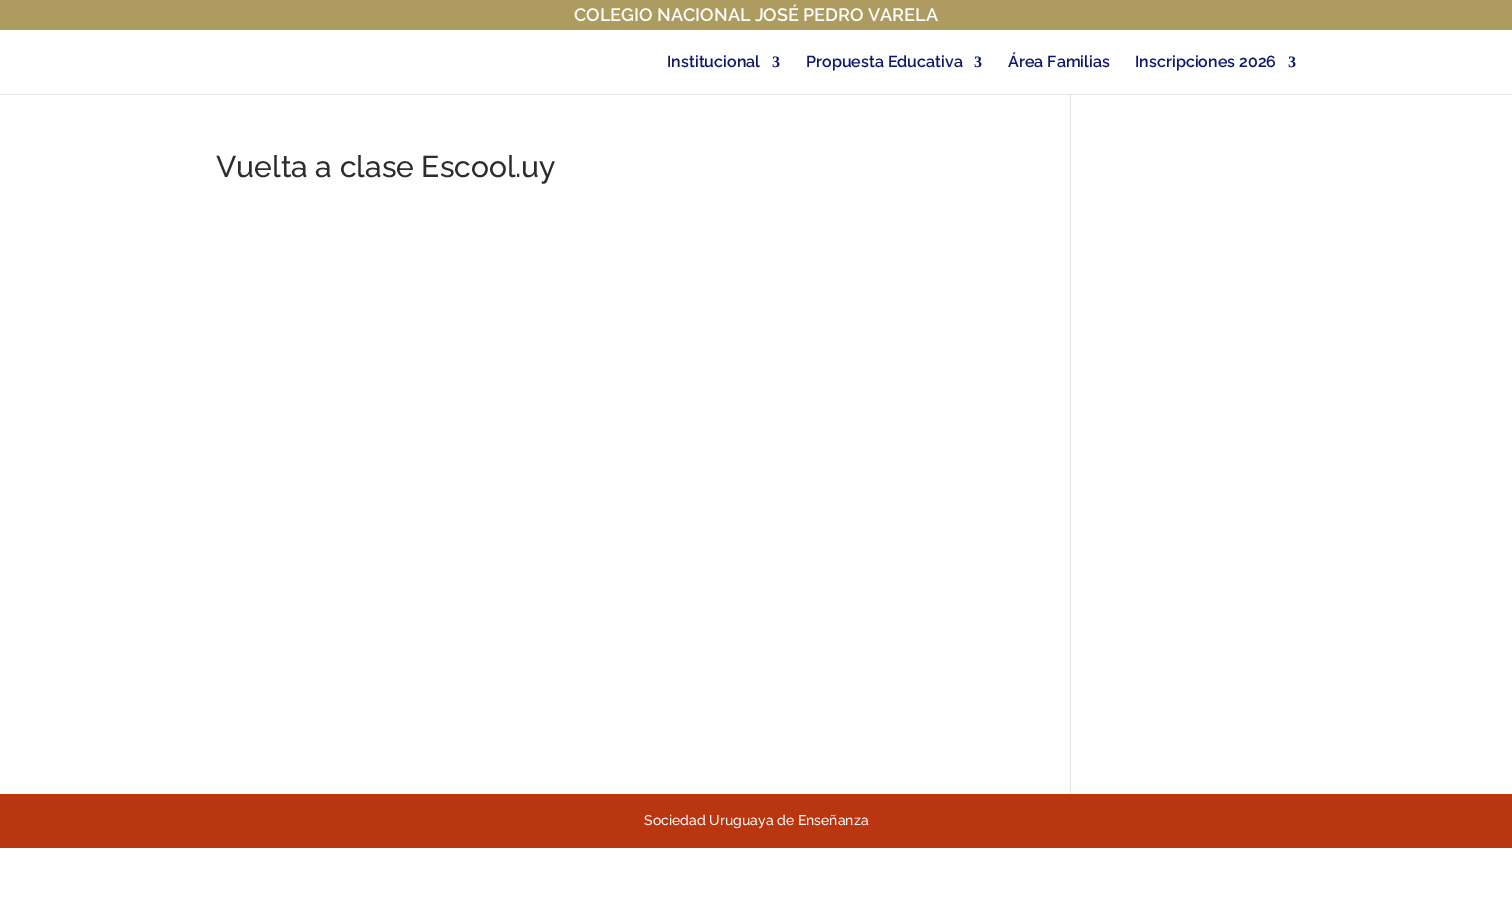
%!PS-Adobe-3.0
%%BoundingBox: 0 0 1512 901
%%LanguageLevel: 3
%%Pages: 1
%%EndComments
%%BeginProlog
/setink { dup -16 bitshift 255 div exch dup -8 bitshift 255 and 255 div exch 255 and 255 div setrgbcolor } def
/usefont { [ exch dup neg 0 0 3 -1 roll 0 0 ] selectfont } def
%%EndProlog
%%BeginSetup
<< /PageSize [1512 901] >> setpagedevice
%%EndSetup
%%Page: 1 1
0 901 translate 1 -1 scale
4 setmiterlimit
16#FFFFFF setink
0 0 1512 901 rectfill
16#E6E6E6 setink
0 94 1512 1 rectfill
16#AD9B5F setink
0 0 1512 30 rectfill
/Raleway-SemiBold 18 usefont
16#FFFFFF setink
574 21 moveto (COLEGIO NACIONAL JOSÉ PEDRO VARELA) show
/Raleway-SemiBold 16 usefont
16#0E196C setink
667 67 moveto (Institucional) show
/LiberationSerif-Bold 16 usefont
772 67 moveto (3) show
/Raleway-SemiBold 16 usefont
806 67 moveto (Propuesta Educativa) show
/LiberationSerif-Bold 16 usefont
974 67 moveto (3) show
/Raleway-SemiBold 16 usefont
1008 67 moveto (Área Familias) show
1135 67 moveto (Inscripciones 2026) show
/LiberationSerif-Bold 16 usefont
1288 67 moveto (3) show
/Raleway-Medium 30 usefont
16#2D2D2D setink
216 177 moveto (Vuelta a clase Escool.uy) show
[
    [1070 94 1 700 16#E2E2E2]
    [1070 94 1 1 16#CBCBCB]
    [0 794 1512 54 16#BA3611]
] { aload pop setink rectfill } forall
/Raleway-Medium 14 usefont
16#FFFFFF setink
644 825 moveto (Sociedad Uruguaya de Enseñanza) show
showpage
%%EOF
